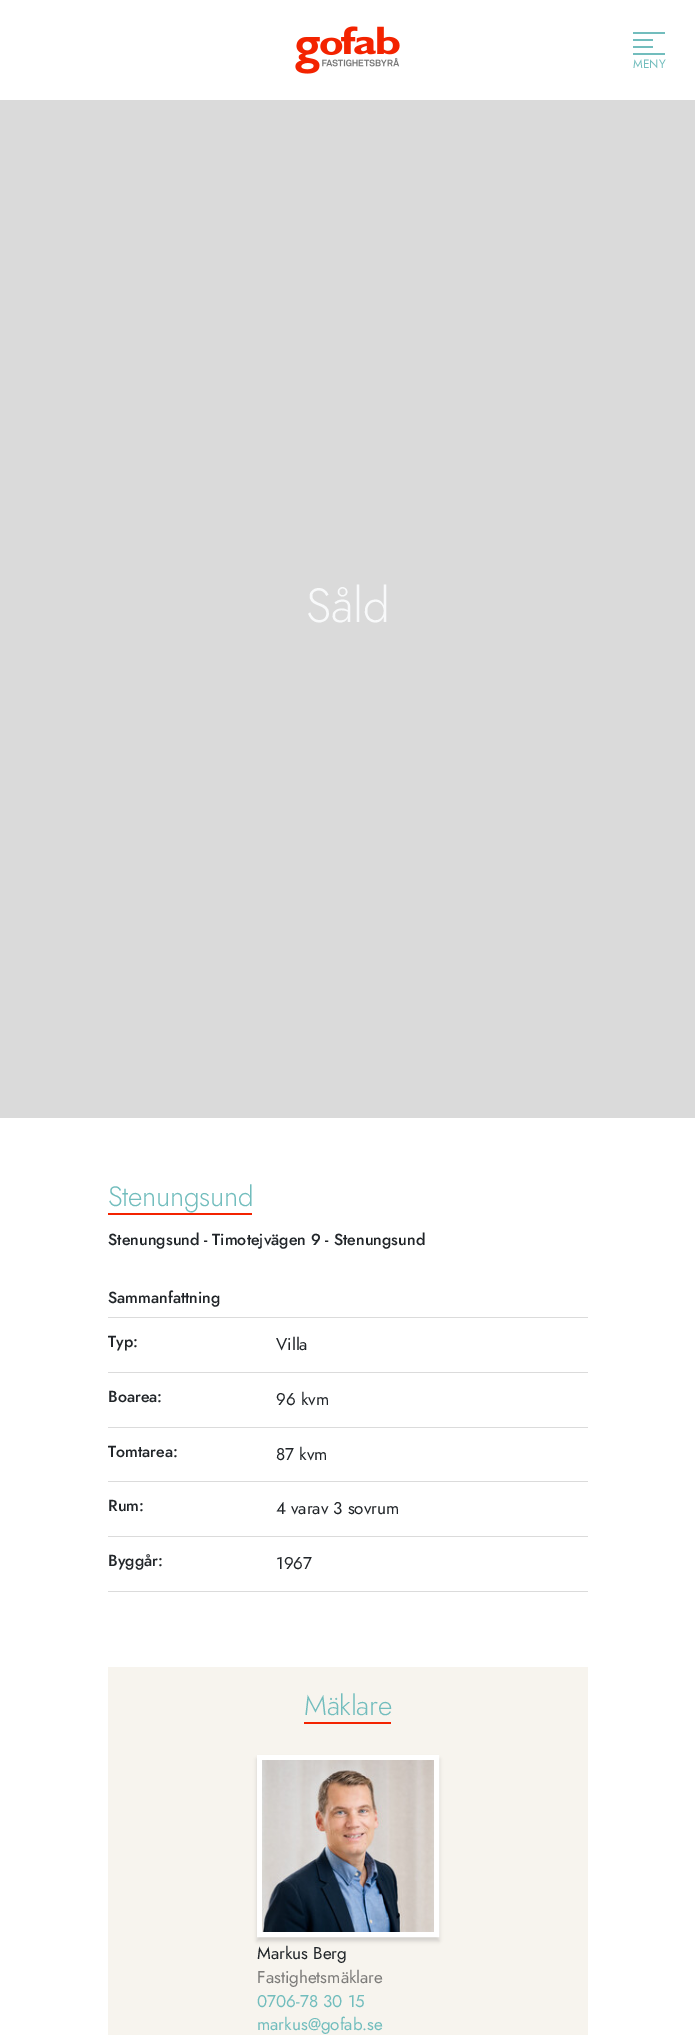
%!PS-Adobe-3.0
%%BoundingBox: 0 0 695 2035
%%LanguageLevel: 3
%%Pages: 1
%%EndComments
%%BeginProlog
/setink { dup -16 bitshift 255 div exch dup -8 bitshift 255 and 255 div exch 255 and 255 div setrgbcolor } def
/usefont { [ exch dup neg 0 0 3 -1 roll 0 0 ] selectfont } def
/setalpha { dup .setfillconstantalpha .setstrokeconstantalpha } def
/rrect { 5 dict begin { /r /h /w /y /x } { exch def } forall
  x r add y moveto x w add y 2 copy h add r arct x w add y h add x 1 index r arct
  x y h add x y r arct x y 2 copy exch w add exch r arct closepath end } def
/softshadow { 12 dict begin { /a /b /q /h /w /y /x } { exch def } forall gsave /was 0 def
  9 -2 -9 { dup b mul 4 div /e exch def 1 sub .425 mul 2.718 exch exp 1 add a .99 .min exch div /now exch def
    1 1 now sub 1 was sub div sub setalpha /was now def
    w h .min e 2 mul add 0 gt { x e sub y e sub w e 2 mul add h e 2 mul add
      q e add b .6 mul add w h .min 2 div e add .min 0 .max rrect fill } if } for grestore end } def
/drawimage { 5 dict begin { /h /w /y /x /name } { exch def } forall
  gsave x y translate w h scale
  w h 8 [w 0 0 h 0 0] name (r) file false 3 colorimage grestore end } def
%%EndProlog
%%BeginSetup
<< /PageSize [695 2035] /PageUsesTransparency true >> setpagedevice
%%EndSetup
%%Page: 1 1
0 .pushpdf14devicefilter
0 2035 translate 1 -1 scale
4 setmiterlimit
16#FFFFFF setink
0 0 695 2035 rectfill
(img1.raw) 295 26 105 48 drawimage
[
    [633 32 32 2 16#72BDBD]
    [633 39 20 2 16#72BDBD]
    [633 46 20 2 16#72BDBD]
    [633 53 32 2 16#72BDBD]
] { aload pop setink rectfill } forall
/Jost-Regular 12 usefont
633 68 moveto (MENY) show
16#DADADA setink
0 100 695 1018 rectfill
/Jost-Light 48 usefont
16#F8F9FA setink
306 622 moveto -0.3 0 (Såld) ashow
/Jost-Light 28 usefont
16#72BDBD setink
108 1206 moveto -0.3 0 (Stenungsund) ashow
16#F32300 setink
108 1213 144 2 rectfill
/Jost-Medium 16 usefont
16#212529 setink
108 1245 moveto (Stenungsund - Timotejvägen 9 - Stenungsund) show
16#DBDBDB setink
108 1317 480 1 rectfill
16#212529 setink
108 1303 moveto (Sammanfattning) show
16#DBDBDB setink
108 1372 480 1 rectfill
16#212529 setink
108 1347 moveto (Typ:) show
/Jost-Regular 17 usefont
276 1350 moveto (Villa) show
16#DBDBDB setink
108 1427 480 1 rectfill
/Jost-Medium 16 usefont
16#212529 setink
108 1402 moveto (Boarea:) show
/Jost-Regular 17 usefont
276 1405 moveto (96 kvm) show
16#DBDBDB setink
108 1481 480 1 rectfill
/Jost-Medium 16 usefont
16#212529 setink
108 1457 moveto (Tomtarea:) show
/Jost-Regular 17 usefont
276 1460 moveto (87 kvm) show
16#DBDBDB setink
108 1536 480 1 rectfill
/Jost-Medium 16 usefont
16#212529 setink
108 1511 moveto (Rum:) show
/Jost-Regular 17 usefont
276 1514 moveto (4 varav 3 sovrum) show
16#DBDBDB setink
108 1591 480 1 rectfill
/Jost-Medium 16 usefont
16#212529 setink
108 1566 moveto (Byggår:) show
/Jost-Regular 17 usefont
276 1569 moveto (1967) show
16#F7F4EE setink
108 1667 480 368 rectfill
/Jost-Light 28 usefont
16#72BDBD setink
304 1715 moveto -0.3 0 (Mäklare) ashow
16#F32300 setink
304 1722 87 2 rectfill
16#000000 setink
257 1759 182 182 0 2 0.15 softshadow
16#FFFFFF setink
5 setlinewidth
259.5 1757.5 177 177 rectstroke
(img2.raw) 262 1760 172 172 drawimage
/Jost-Regular 17 usefont
16#212529 setink
257 1959 moveto (Markus Berg) show
16#7D7C7A setink
257 1983 moveto (Fastighetsmäklare) show
16#72BDBD setink
257 2007 moveto (0706-78 30 15) show
257 2030 moveto (markus@gofab.se) show
.poppdf14devicefilter showpage
%%EOF
